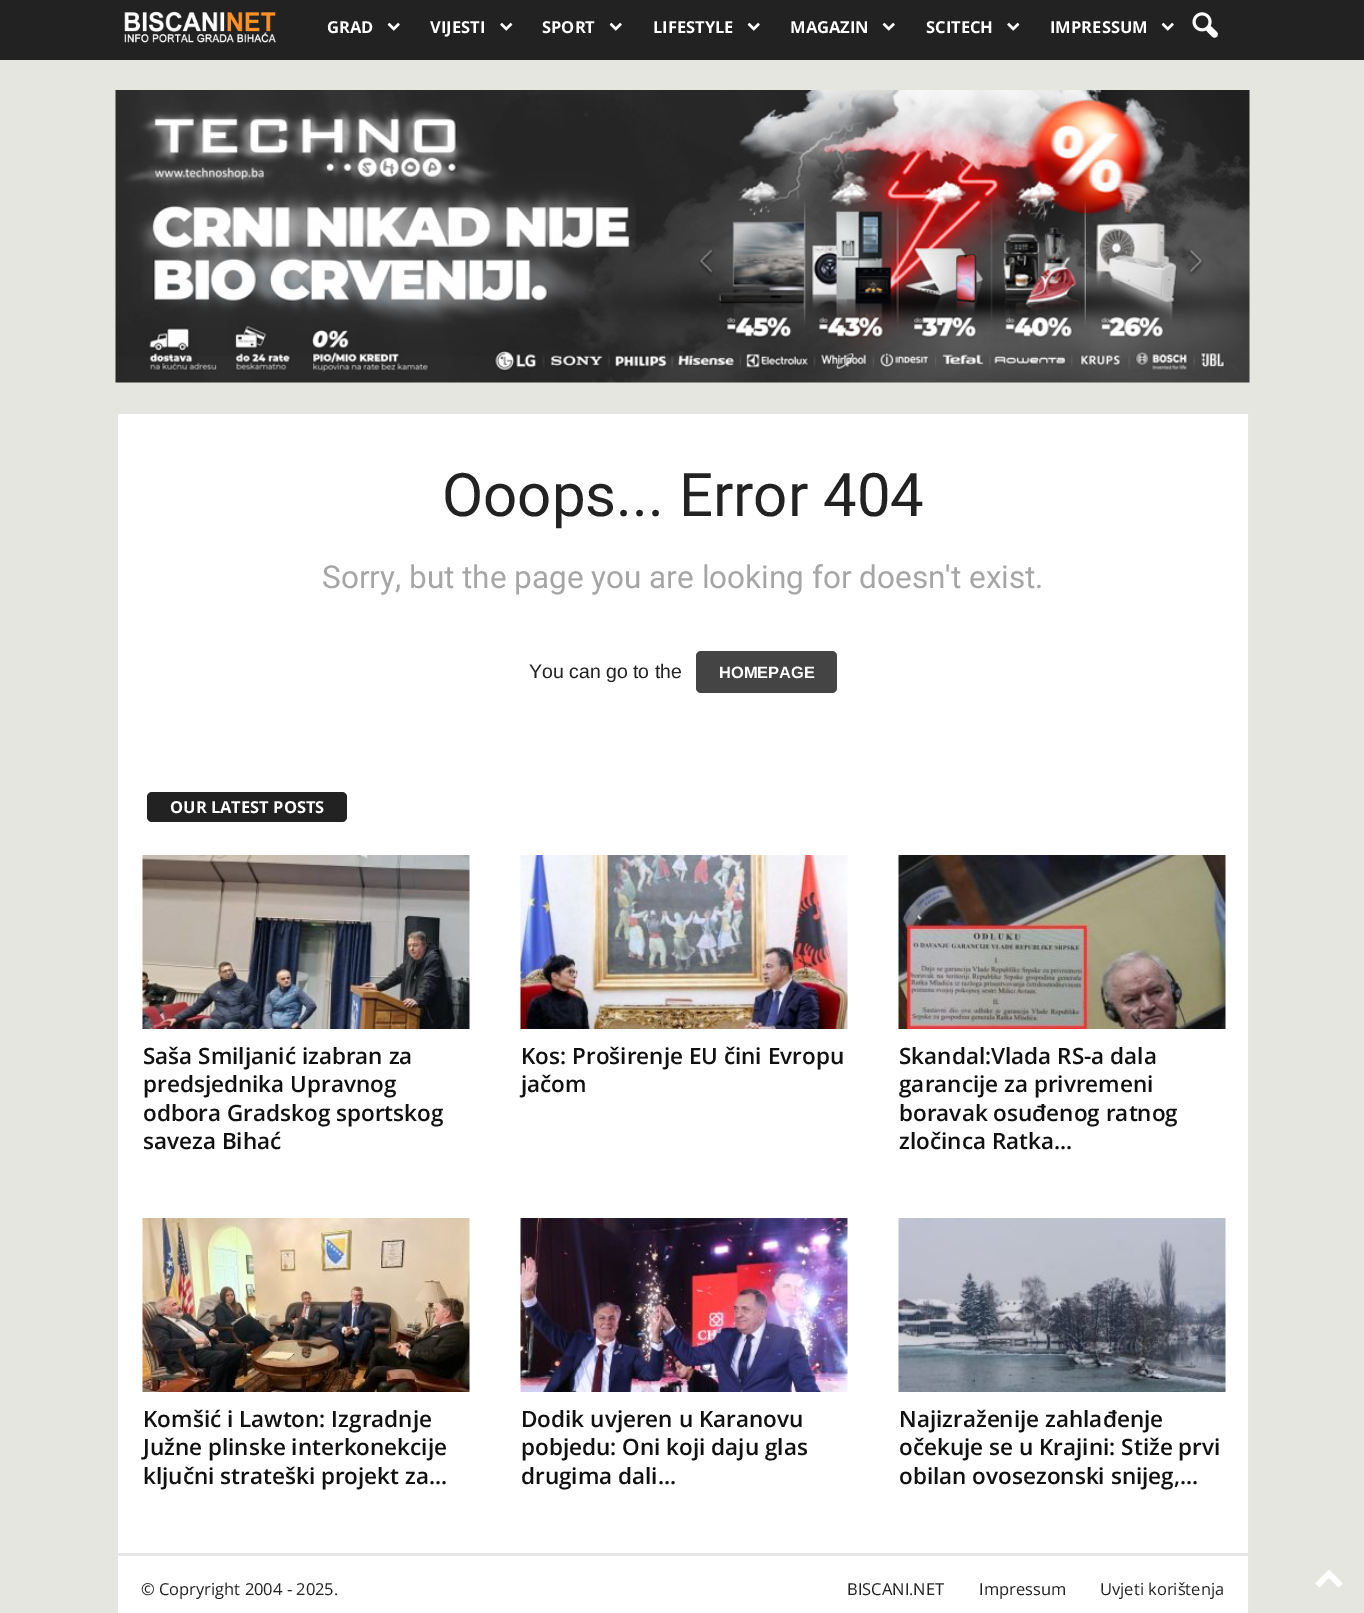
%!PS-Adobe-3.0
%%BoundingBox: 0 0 1364 1613
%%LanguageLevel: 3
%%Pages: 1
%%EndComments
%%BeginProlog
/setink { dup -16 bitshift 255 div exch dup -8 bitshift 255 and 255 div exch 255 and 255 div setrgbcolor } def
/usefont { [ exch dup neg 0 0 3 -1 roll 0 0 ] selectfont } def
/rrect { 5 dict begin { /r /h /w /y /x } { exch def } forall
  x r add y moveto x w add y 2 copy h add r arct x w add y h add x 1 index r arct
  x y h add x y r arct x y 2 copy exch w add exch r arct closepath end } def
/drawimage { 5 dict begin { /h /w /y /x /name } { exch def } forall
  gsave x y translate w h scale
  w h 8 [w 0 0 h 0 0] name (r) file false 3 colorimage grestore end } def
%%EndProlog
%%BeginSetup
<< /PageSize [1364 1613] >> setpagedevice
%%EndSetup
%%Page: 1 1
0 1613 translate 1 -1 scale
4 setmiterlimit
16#E5E6E0 setink
0 0 1364 1613 rectfill
16#222222 setink
0 0 1364 60 rectfill
(img1.raw) 124 11 152 32 drawimage
/OpenSans-Bold 16.5 usefont
16#FFFFFF setink
327 33 moveto (GRAD) show
(img2.raw) 387 22 13 9 drawimage
430 33 moveto (VIJESTI) show
(img3.raw) 500 22 13 9 drawimage
542 33 moveto (SPORT) show
(img2.raw) 609 22 13 9 drawimage
653 33 moveto (LIFESTYLE) show
(img2.raw) 747 22 13 9 drawimage
790 33 moveto (MAGAZIN) show
(img2.raw) 882 22 13 9 drawimage
926 33 moveto (SCITECH) show
(img3.raw) 1007 22 13 9 drawimage
1050 33 moveto (IMPRESSUM) show
(img2.raw) 1161 22 13 9 drawimage
(img4.raw) 1192 12 26 26 drawimage
16#E6E6E6 setink
116 413 1134 1 rectfill
(img5.raw) 115 90 1135 293 drawimage
16#FFFFFF setink
118 414 1130 1139 rectfill
16#E6E6E6 setink
116 414 2 1139 rectfill
/Roboto-Regular 60 usefont
16#222222 setink
442 516 moveto (Ooops... Error 404) show
/Roboto-Regular 31.5 usefont
16#A6A6A6 setink
322 588 moveto (Sorry, but the page you are looking for doesn't exist.) show
/LiberationSans-Regular 19.5 usefont
16#222222 setink
529 678 moveto (You can go to the) show
16#444444 setink
696 651 141 42 5 rrect fill
/LiberationSans-Bold 16.5 usefont
16#FFFFFF setink
719 678 moveto (HOMEPAGE) show
16#222222 setink
147 792 200 30 5 rrect fill
/OpenSans-Bold 16.5 usefont
16#FFFFFF setink
170 813 moveto (OUR LATEST POSTS) show
(img6.raw) 142 855 328 174 drawimage
/OpenSans-SemiBold 22.5 usefont
16#111111 setink
[
    [(Saša Smiljanić izabran za) 143 1064]
    [(predsjednika Upravnog) 143 1092]
    [(odbora Gradskog sportskog) 143 1121]
    [(saveza Bihać) 143 1149]
] { aload pop moveto show } forall
(img7.raw) 520 855 328 174 drawimage
521 1064 moveto (Kos: Proširenje EU čini Evropu) show
521 1092 moveto (jačom) show
(img8.raw) 898 855 328 174 drawimage
[
    [(Skandal:Vlada RS-a dala) 899 1064]
    [(garancije za privremeni) 899 1092]
    [(boravak osuđenog ratnog) 899 1121]
    [(zločinca Ratka...) 899 1149]
] { aload pop moveto show } forall
(img9.raw) 142 1218 328 174 drawimage
[
    [(Komšić i Lawton: Izgradnje) 143 1427]
    [(Južne plinske interkonekcije) 143 1455]
    [(ključni strateški projekt za...) 143 1484]
] { aload pop moveto show } forall
(img10.raw) 520 1218 328 174 drawimage
[
    [(Dodik uvjeren u Karanovu) 521 1427]
    [(pobjedu: Oni koji daju glas) 521 1455]
    [(drugima dali...) 521 1484]
] { aload pop moveto show } forall
(img11.raw) 898 1218 328 174 drawimage
[
    [(Najizraženije zahlađenje) 899 1427]
    [(očekuje se u Krajini: Stiže prvi) 899 1455]
    [(obilan ovosezonski snijeg,...) 899 1484]
] { aload pop moveto show } forall
[
    [1248 414 2 1139 16#E6E6E6]
    [118 1556 1130 57 16#FFFFFF]
    [116 1553 1134 3 16#E6E6E6]
    [116 1556 2 57 16#E6E6E6]
] { aload pop setink rectfill } forall
/OpenSans-Regular 16.5 usefont
16#222222 setink
[
    [(© Copryright 2004 - 2025.) 141 1595]
    [(BISCANI.NET) 847 1595]
    [(Impressum) 979 1595]
    [(Uvjeti korištenja) 1100 1595]
] { aload pop moveto show } forall
16#E6E6E6 setink
1248 1556 2 57 rectfill
(img12.raw) 1315 1570 28 18 drawimage
showpage
%%EOF
